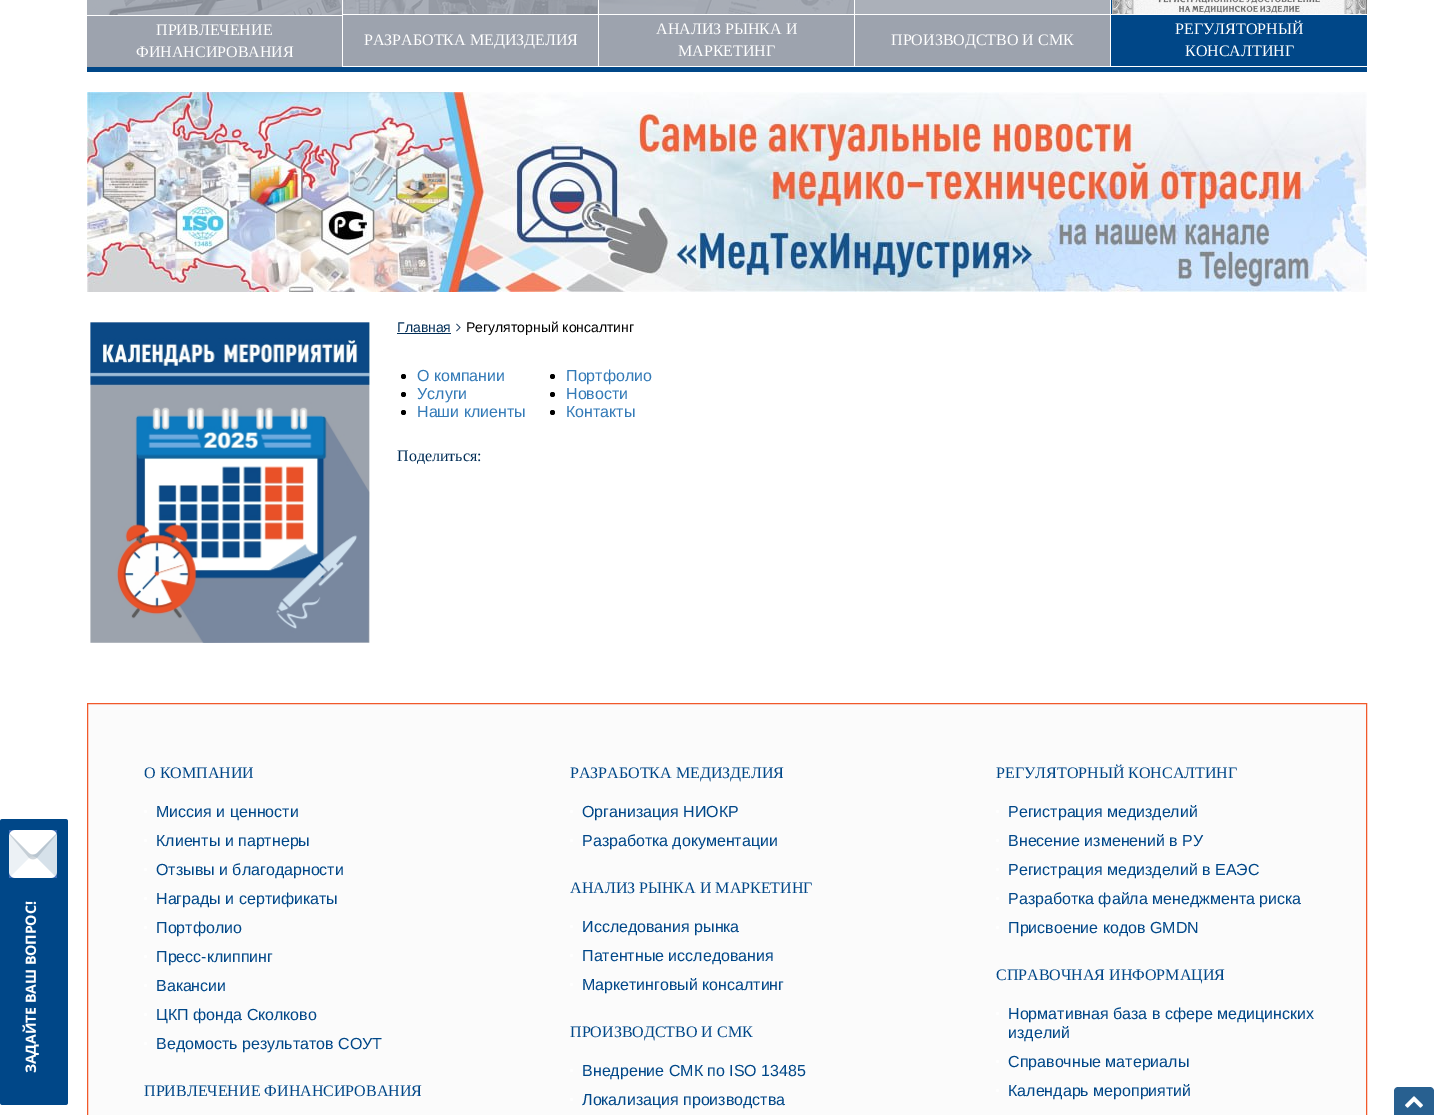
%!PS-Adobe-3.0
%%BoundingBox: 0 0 1454 1115
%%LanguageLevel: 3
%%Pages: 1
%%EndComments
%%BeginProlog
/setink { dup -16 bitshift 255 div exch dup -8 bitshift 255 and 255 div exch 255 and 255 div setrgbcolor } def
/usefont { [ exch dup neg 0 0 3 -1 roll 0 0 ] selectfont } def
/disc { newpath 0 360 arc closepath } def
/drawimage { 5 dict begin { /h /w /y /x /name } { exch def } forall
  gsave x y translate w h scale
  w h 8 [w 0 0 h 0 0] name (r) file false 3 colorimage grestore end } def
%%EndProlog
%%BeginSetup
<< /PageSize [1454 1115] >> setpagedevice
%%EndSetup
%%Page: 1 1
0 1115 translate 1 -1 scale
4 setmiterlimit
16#FFFFFF setink
0 0 1454 1115 rectfill
16#004788 setink
87 67 1280 5 rectfill
16#9DA3AE setink
87 16 255 51 rectfill
(img1.raw) 87 0 255 15 drawimage
/LiberationSerif-Regular 16 usefont
16#FFFFFF setink
156 35 moveto (ПРИВЛЕЧЕНИЕ) show
136 57 moveto (ФИНАНСИРОВАНИЯ) show
16#9DA3AE setink
343 15 255 51 rectfill
(img2.raw) 343 0 255 14 drawimage
16#FFFFFF setink
364 45 moveto (РАЗРАБОТКА МЕДИЗДЕЛИЯ) show
16#9DA3AE setink
599 15 255 51 rectfill
(img3.raw) 599 0 255 14 drawimage
16#FFFFFF setink
656 34 moveto (АНАЛИЗ РЫНКА И) show
678 56 moveto (МАРКЕТИНГ) show
16#9DA3AE setink
855 15 255 51 rectfill
16#ABB0B9 setink
855 0 255 14 rectfill
16#FFFFFF setink
891 45 moveto (ПРОИЗВОДСТВО И СМК) show
16#004788 setink
1111 0 256 66 rectfill
(img4.raw) 1112 0 255 14 drawimage
16#FFFFFF setink
1111 14 256 1 rectfill
1175 34 moveto (РЕГУЛЯТОРНЫЙ) show
1185 56 moveto (КОНСАЛТИНГ) show
(img5.raw) 87 92 1280 200 drawimage
(img6.raw) 90 322 280 321 drawimage
/LiberationSans-Regular 14 usefont
16#002C55 setink
397 332 moveto (Главная) show
397 333 54 1 rectfill
(img7.raw) 456 323 5 9 drawimage
16#000000 setink
466 332 moveto (Регуляторный консалтинг) show
403.5 376.5 2.5 disc fill
/LiberationSans-Regular 16 usefont
16#337AB7 setink
417 381 moveto (О компании) show
16#000000 setink
403.5 394.5 2.5 disc fill
16#337AB7 setink
417 399 moveto (Услуги) show
16#000000 setink
403.5 412.5 2.5 disc fill
16#337AB7 setink
417 417 moveto (Наши клиенты) show
16#000000 setink
552.5 376.5 2.5 disc fill
16#337AB7 setink
566 381 moveto (Портфолио) show
16#000000 setink
552.5 394.5 2.5 disc fill
16#337AB7 setink
566 399 moveto (Новости) show
16#000000 setink
552.5 412.5 2.5 disc fill
16#337AB7 setink
566 417 moveto (Контакты) show
/LiberationSerif-Regular 16 usefont
16#002C55 setink
397 461 moveto (Поделиться:) show
(img8.raw) 0 819 68 286 drawimage
16#FBFBFB setink
87.5 703.5 moveto 1366.5 703.5 lineto 1366.5 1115.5 lineto 87.5 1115.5 lineto closepath gsave fill grestore
16#F1592A setink
stroke
16#004788 setink
144 778 moveto (О КОМПАНИИ) show
16#FFFFFF setink
145.5 811.5 1.5 disc fill
/LiberationSans-Regular 16 usefont
16#004788 setink
156 817 moveto (Миссия и ценности) show
16#FFFFFF setink
145.5 840.5 1.5 disc fill
16#004788 setink
156 846 moveto (Клиенты и партнеры) show
16#FFFFFF setink
145.5 869.5 1.5 disc fill
16#004788 setink
156 875 moveto (Отзывы и благодарности) show
16#FFFFFF setink
145.5 898.5 1.5 disc fill
16#004788 setink
156 904 moveto (Награды и сертификаты) show
16#FFFFFF setink
145.5 927.5 1.5 disc fill
16#004788 setink
156 933 moveto (Портфолио) show
16#FFFFFF setink
145.5 956.5 1.5 disc fill
16#004788 setink
156 962 moveto (Пресс-клиппинг) show
16#FFFFFF setink
145.5 985.5 1.5 disc fill
16#004788 setink
156 991 moveto (Вакансии) show
16#FFFFFF setink
145.5 1014.5 1.5 disc fill
16#004788 setink
156 1020 moveto (ЦКП фонда Сколково) show
16#FFFFFF setink
145.5 1043.5 1.5 disc fill
16#004788 setink
156 1049 moveto (Ведомость результатов СОУТ) show
/LiberationSerif-Regular 16 usefont
144 1096 moveto (ПРИВЛЕЧЕНИЕ ФИНАНСИРОВАНИЯ) show
570 778 moveto (РАЗРАБОТКА МЕДИЗДЕЛИЯ) show
16#FFFFFF setink
571.5 811.5 1.5 disc fill
/LiberationSans-Regular 16 usefont
16#004788 setink
582 817 moveto (Организация НИОКР) show
16#FFFFFF setink
571.5 840.5 1.5 disc fill
16#004788 setink
582 846 moveto (Разработка документации) show
/LiberationSerif-Regular 16 usefont
570 893 moveto (АНАЛИЗ РЫНКА И МАРКЕТИНГ) show
16#FFFFFF setink
571.5 926.5 1.5 disc fill
/LiberationSans-Regular 16 usefont
16#004788 setink
582 932 moveto (Исследования рынка) show
16#FFFFFF setink
571.5 955.5 1.5 disc fill
16#004788 setink
582 961 moveto (Патентные исследования) show
16#FFFFFF setink
571.5 984.5 1.5 disc fill
16#004788 setink
582 990 moveto (Маркетинговый консалтинг) show
/LiberationSerif-Regular 16 usefont
570 1037 moveto (ПРОИЗВОДСТВО И СМК) show
16#FFFFFF setink
571.5 1070.5 1.5 disc fill
/LiberationSans-Regular 16 usefont
16#004788 setink
582 1076 moveto (Внедрение СМК по ISO 13485) show
16#FFFFFF setink
571.5 1099.5 1.5 disc fill
16#004788 setink
582 1105 moveto (Локализация производства) show
/LiberationSerif-Regular 16 usefont
996 778 moveto (РЕГУЛЯТОРНЫЙ КОНСАЛТИНГ) show
16#FFFFFF setink
997.5 811.5 1.5 disc fill
/LiberationSans-Regular 16 usefont
16#004788 setink
1008 817 moveto (Регистрация медизделий) show
16#FFFFFF setink
997.5 840.5 1.5 disc fill
16#004788 setink
1008 846 moveto (Внесение изменений в РУ) show
16#FFFFFF setink
997.5 869.5 1.5 disc fill
16#004788 setink
1008 875 moveto (Регистрация медизделий в ЕАЭС) show
16#FFFFFF setink
997.5 898.5 1.5 disc fill
16#004788 setink
1008 904 moveto (Разработка файла менеджмента риска) show
16#FFFFFF setink
997.5 927.5 1.5 disc fill
16#004788 setink
1008 933 moveto (Присвоение кодов GMDN) show
/LiberationSerif-Regular 16 usefont
996 980 moveto (СПРАВОЧНАЯ ИНФОРМАЦИЯ) show
16#FFFFFF setink
997.5 1013.5 1.5 disc fill
/LiberationSans-Regular 16 usefont
16#004788 setink
1008 1019 moveto (Нормативная база в сфере медицинских) show
1008 1038 moveto (изделий) show
16#FFFFFF setink
997.5 1061.5 1.5 disc fill
16#004788 setink
1008 1067 moveto (Справочные материалы) show
16#FFFFFF setink
997.5 1090.5 1.5 disc fill
16#004788 setink
1008 1096 moveto (Календарь мероприятий) show
16#286090 setink
1398 1087 moveto 1430 1087 lineto 1432 1087 1434 1089 1434 1091 curveto 1434 1115 lineto 1394 1115 lineto 1394 1091 lineto 1394 1089 1396 1087 1398 1087 curveto closepath fill
(img9.raw) 1405 1096 18 12 drawimage
showpage
%%EOF
